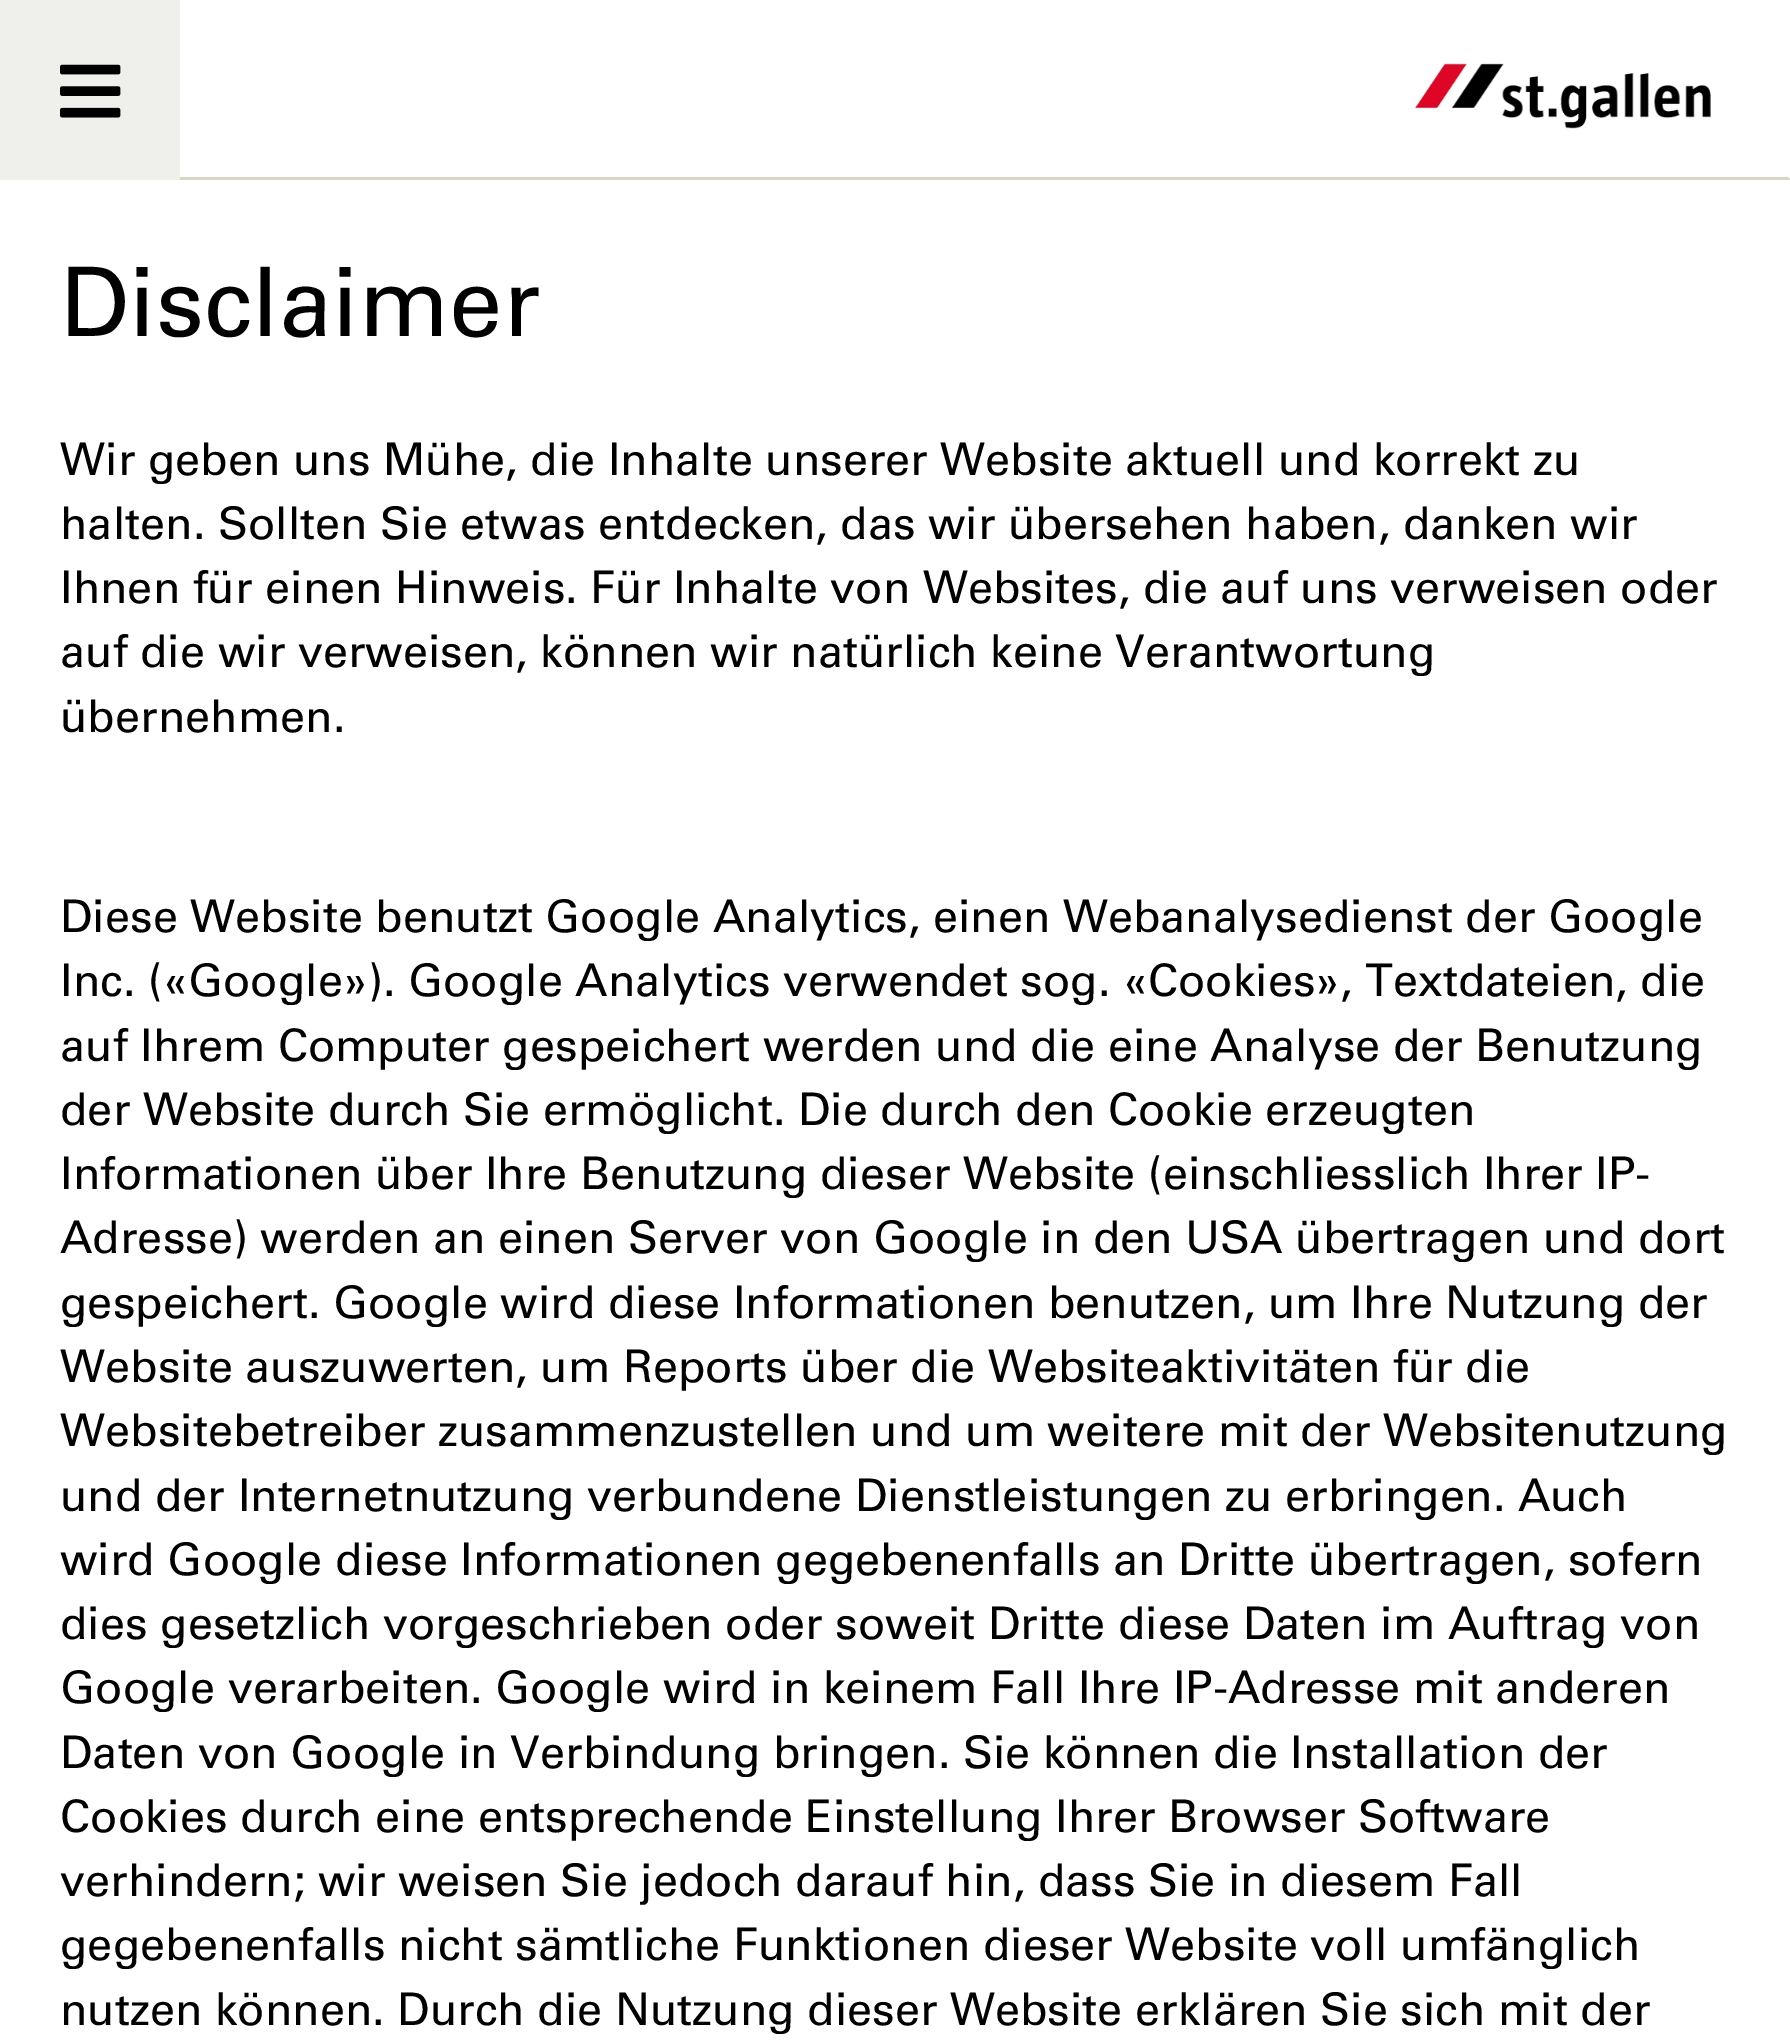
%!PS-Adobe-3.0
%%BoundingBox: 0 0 1790 2042
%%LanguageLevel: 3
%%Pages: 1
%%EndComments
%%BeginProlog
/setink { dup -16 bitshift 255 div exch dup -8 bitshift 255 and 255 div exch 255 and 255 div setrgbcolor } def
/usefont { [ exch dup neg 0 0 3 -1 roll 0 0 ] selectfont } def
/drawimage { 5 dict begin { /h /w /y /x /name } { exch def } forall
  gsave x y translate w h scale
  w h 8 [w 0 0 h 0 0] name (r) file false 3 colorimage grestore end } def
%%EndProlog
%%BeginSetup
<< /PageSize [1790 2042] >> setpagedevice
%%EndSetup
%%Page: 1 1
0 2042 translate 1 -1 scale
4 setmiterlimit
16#FFFFFF setink
0 0 1790 2042 rectfill
16#D8D5C5 setink
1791 180 moveto 0 180 lineto 3 177 lineto 1788 177 lineto closepath fill
16#EFEFEB setink
0 0 180 180 rectfill
(img1.raw) 60 64 61 54 drawimage
(img2.raw) 1414 63 297 66 drawimage
/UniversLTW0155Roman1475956-Regular 96 usefont
16#000000 setink
60 336 moveto (Disclaimer) show
/UniversLTW0155Roman1475956-Regular 45 usefont
[
    [(Wir geben uns Mühe, die Inhalte unserer Website aktuell und korrekt zu) 60 475]
    [(halten. Sollten Sie etwas entdecken, das wir übersehen haben, danken wir) 60 539]
    [(Ihnen für einen Hinweis. Für Inhalte von Websites, die auf uns verweisen oder) 60 603]
    [(auf die wir verweisen, können wir natürlich keine Verantwortung) 60 667]
    [(übernehmen.) 60 732]
    [(Diese Website benutzt Google Analytics, einen Webanalysedienst der Google) 60 932]
    [(Inc. \(«Google»\). Google Analytics verwendet sog. «Cookies», Textdateien, die) 60 996]
    [(auf Ihrem Computer gespeichert werden und die eine Analyse der Benutzung) 60 1061]
    [(der Website durch Sie ermöglicht. Die durch den Cookie erzeugten) 60 1125]
    [(Informationen über Ihre Benutzung dieser Website \(einschliesslich Ihrer IP-) 60 1189]
    [(Adresse\) werden an einen Server von Google in den USA übertragen und dort) 60 1253]
    [(gespeichert. Google wird diese Informationen benutzen, um Ihre Nutzung der) 60 1318]
    [(Website auszuwerten, um Reports über die Websiteaktivitäten für die) 60 1382]
    [(Websitebetreiber zusammenzustellen und um weitere mit der Websitenutzung) 60 1446]
    [(und der Internetnutzung verbundene Dienstleistungen zu erbringen. Auch) 60 1511]
    [(wird Google diese Informationen gegebenenfalls an Dritte übertragen, sofern) 60 1575]
    [(dies gesetzlich vorgeschrieben oder soweit Dritte diese Daten im Auftrag von) 60 1639]
    [(Google verarbeiten. Google wird in keinem Fall Ihre IP-Adresse mit anderen) 60 1703]
    [(Daten von Google in Verbindung bringen. Sie können die Installation der) 60 1768]
    [(Cookies durch eine entsprechende Einstellung Ihrer Browser Software) 60 1832]
    [(verhindern; wir weisen Sie jedoch darauf hin, dass Sie in diesem Fall) 60 1896]
    [(gegebenenfalls nicht sämtliche Funktionen dieser Website voll umfänglich) 60 1960]
    [(nutzen können. Durch die Nutzung dieser Website erklären Sie sich mit der) 60 2025]
] { aload pop moveto show } forall
showpage
%%EOF
